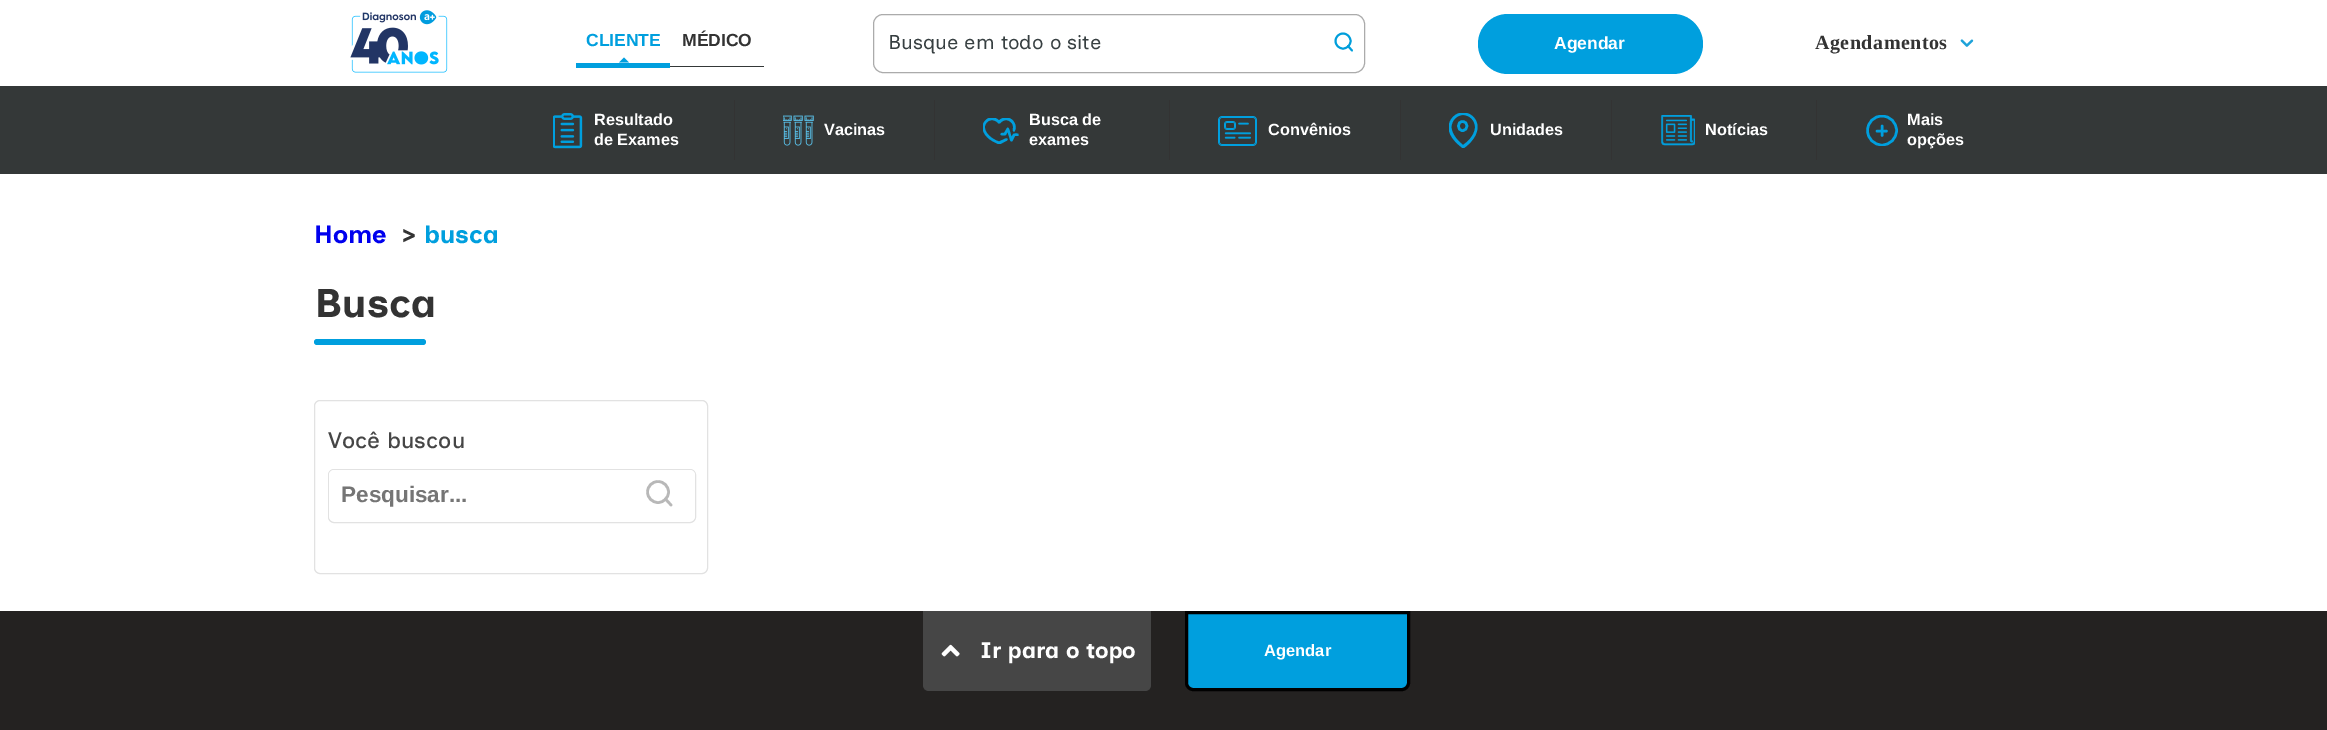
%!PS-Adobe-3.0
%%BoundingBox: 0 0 2327 730
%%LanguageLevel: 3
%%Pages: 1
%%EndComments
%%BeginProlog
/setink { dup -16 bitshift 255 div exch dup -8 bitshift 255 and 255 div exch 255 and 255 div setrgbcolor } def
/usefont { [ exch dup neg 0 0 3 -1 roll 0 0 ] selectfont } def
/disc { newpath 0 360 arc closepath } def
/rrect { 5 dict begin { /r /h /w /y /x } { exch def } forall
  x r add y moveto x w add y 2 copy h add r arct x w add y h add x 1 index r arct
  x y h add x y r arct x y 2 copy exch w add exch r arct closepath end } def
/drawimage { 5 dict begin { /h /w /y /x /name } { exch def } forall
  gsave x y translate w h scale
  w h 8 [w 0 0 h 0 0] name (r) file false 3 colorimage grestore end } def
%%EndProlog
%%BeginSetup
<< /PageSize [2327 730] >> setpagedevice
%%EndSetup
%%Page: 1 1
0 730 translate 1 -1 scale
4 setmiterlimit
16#FFFFFF setink
0 0 2327 730 rectfill
(img1.raw) 350 10 98 63 drawimage
/LiberationSans-Bold 17.5 usefont
16#009FDE setink
586 46 moveto (CLIENTE) show
629 62.5 moveto 619 62.5 lineto 624 57.5 lineto closepath fill
576 63 94 5 rectfill
16#343838 setink
670 66 94 1 rectfill
16#333333 setink
682 46 moveto (MÉDICO) show
16#ABABAB setink
873.5 14.5 491 58 9.5 rrect stroke
/InclusiveSans-Regular 20 usefont
16#373F41 setink
888 49 moveto (Busque em todo o site) show
16#009EDB setink
1.9 setlinewidth
1343 41 7.5 disc stroke
1 setlinecap
1 setlinejoin
1352 50.5 moveto 1348 46 lineto stroke
16#009FDE setink
1478 14 225 60 30 rrect fill
/LiberationSans-Bold 17.5 usefont
16#FFFFFF setink
1554 49 moveto (Agendar) show
/LiberationSerif-Bold 20 usefont
16#333333 setink
1815 49 moveto 0.5 0 (Agendamentos) ashow
(img2.raw) 1960 39 14 8 drawimage
16#343838 setink
0 86 2327 88 rectfill
(img3.raw) 553 113 30 36 drawimage
/LiberationSans-Bold 16.25 usefont
16#FFFFFF setink
594 125 moveto (Resultado) show
594 145 moveto (de Exames) show
16#333333 setink
734 100 1 60 rectfill
(img4.raw) 783 115 31 31 drawimage
16#FFFFFF setink
824 135 moveto (Vacinas) show
16#333333 setink
934 100 1 60 rectfill
gsave
983 118 36 26 rectclip
16#009FDE setink
1005.5 138.5 moveto 999 141.5 lineto 994.5 140 989.5 137 987 133 curveto 985.5 131 984.5 128.5 985 126 curveto 985.5 123.5 987.5 121 990 120.5 curveto 992.5 119.5 995.5 120.5 997.5 122.5 curveto 998 123 998 123.5 999 123.5 curveto 1000 123.5 1000.5 123 1001 122.5 curveto 1002.5 120.5 1005.5 119.5 1008 120.5 curveto 1011.5 121.5 1013.5 124.5 1013 128 curveto 1013 128.5 1012 132 1014.5 131.5 curveto 1015 130.5 lineto 1016 128 1016 125.5 1014.5 123 curveto 1012 117 1003.5 115.5 999 120.5 curveto 990 111 974.5 125 987.5 137.5 curveto 990 140 993 141.5 996 143 curveto 998.5 144 998.5 144.5 1000.5 144 curveto 1005 141.5 lineto 1006 141 1008 140.5 1007.5 139 curveto 1007.5 138.5 1006.5 138 1005.5 138.5 curveto closepath 1017.5 133.5 moveto 1013 133.5 1013.5 133 1011.5 137 curveto 1010 131.5 lineto 1009.5 130.5 1008.5 126 1007 128 curveto 1004 133 lineto 1003 133 1001 132.5 1000.5 134 curveto 1000 136 1005 135.5 1006 135 curveto 1007.5 132 lineto 1009.5 138 lineto 1009.5 138.5 1010.5 143 1012.5 141 curveto 1015 136 lineto 1018 136 lineto 1019 135.5 1018.5 133.5 1017.5 133.5 curveto closepath eofill
grestore
16#FFFFFF setink
1029 125 moveto (Busca de) show
1029 145 moveto (exames) show
16#333333 setink
1169 100 1 60 rectfill
(img5.raw) 1218 116 39 30 drawimage
16#FFFFFF setink
1268 135 moveto (Convênios) show
16#333333 setink
1400 100 1 60 rectfill
gsave
1449 113 29 36 rectclip
16#009FDE setink
1463 112.5 moveto 1455.5 112.5 1449 119 1448.5 127 curveto 1448.5 138.5 1462 147.5 1462.5 148 curveto 1463 148 1463.5 148 1464 148 curveto 1464.5 147.5 1477.5 139 1477.5 127 curveto 1477.5 119 1471 112.5 1463 112.5 curveto closepath 1463 145 moveto 1460.5 143 1451.5 135.5 1451.5 127 curveto 1451.5 120.5 1457 115 1463 115 curveto 1469.5 115 1475 120.5 1475 127 curveto 1475 136 1466 143 1463 145 curveto closepath eofill
grestore
16#009FDE setink
2.5 setlinewidth
0 setlinecap
0 setlinejoin
1462.5 130.5 moveto 1468.5 130.5 1468.5 121.5 1462.5 121.5 curveto 1457 121.5 1457 130.5 1462.5 130.5 curveto closepath stroke
16#FFFFFF setink
1490 135 moveto (Unidades) show
16#333333 setink
1611 100 1 60 rectfill
(img6.raw) 1661 115 34 31 drawimage
16#FFFFFF setink
1705 135 moveto (Notícias) show
16#333333 setink
1816 100 1 60 rectfill
gsave
1866 115 32 31 rectclip
16#009FDE setink
1882 130.5 14.5 disc stroke
grestore
16#009FDE setink
1 setlinecap
1877 131 moveto 1886.5 131 lineto 1882 126 moveto 1882 135.5 lineto stroke
16#FFFFFF setink
1907 125 moveto (Mais) show
1907 145 moveto (opções) show
/InclusiveSans-Bold 25 usefont
16#0000EE setink
314 243 moveto (Home) show
16#333333 setink
402 243 moveto (>) show
16#009FDE setink
424 243 moveto (busca) show
/InclusiveSans-Bold 40 usefont
16#333333 setink
314 317 moveto (Busca) show
16#009FDE setink
314 339 112 6 3 rrect fill
16#E2E2E2 setink
1 setlinewidth
0 setlinecap
314.5 400.5 393 173 5.5 rrect stroke
/InclusiveSans-Medium 22.5 usefont
16#464646 setink
328 448 moveto (Você buscou) show
16#E2E2E2 setink
328.5 469.5 367 53 5.5 rrect stroke
16#FFFFFF setink
329 470 366 51 5 rrect fill
/LiberationSans-Bold 22.5 usefont
16#757575 setink
341 502 moveto (Pesquisar...) show
16#B8B8B8 setink
2.6 setlinewidth
658 492 10.5 disc stroke
1 setlinecap
1 setlinejoin
671 505 moveto 665.5 499 lineto stroke
16#242221 setink
0 611 2327 119 rectfill
16#464646 setink
923 611 moveto 1151 611 lineto 1151 685 lineto 1151 688.5 1148.5 691 1145 691 curveto 929 691 lineto 925.5 691 923 688.5 923 685 curveto closepath fill
(img7.raw) 941 644 19 13 drawimage
/InclusiveSans-Bold 22.5 usefont
16#FFFFFF setink
980 658 moveto (Ir para o topo) show
16#009FDE setink
1186.5 612.5 moveto 1408.5 612.5 lineto 1408.5 683 lineto 1408.5 686.5 1405.5 689.5 1402 689.5 curveto 1193 689.5 lineto 1189.5 689.5 1186.5 686.5 1186.5 683 curveto closepath gsave fill grestore
16#000000 setink
3 setlinewidth
0 setlinecap
0 setlinejoin
stroke
/LiberationSans-Bold 16.5 usefont
16#FFFFFF setink
1264 656 moveto (Agendar) show
showpage
%%EOF
